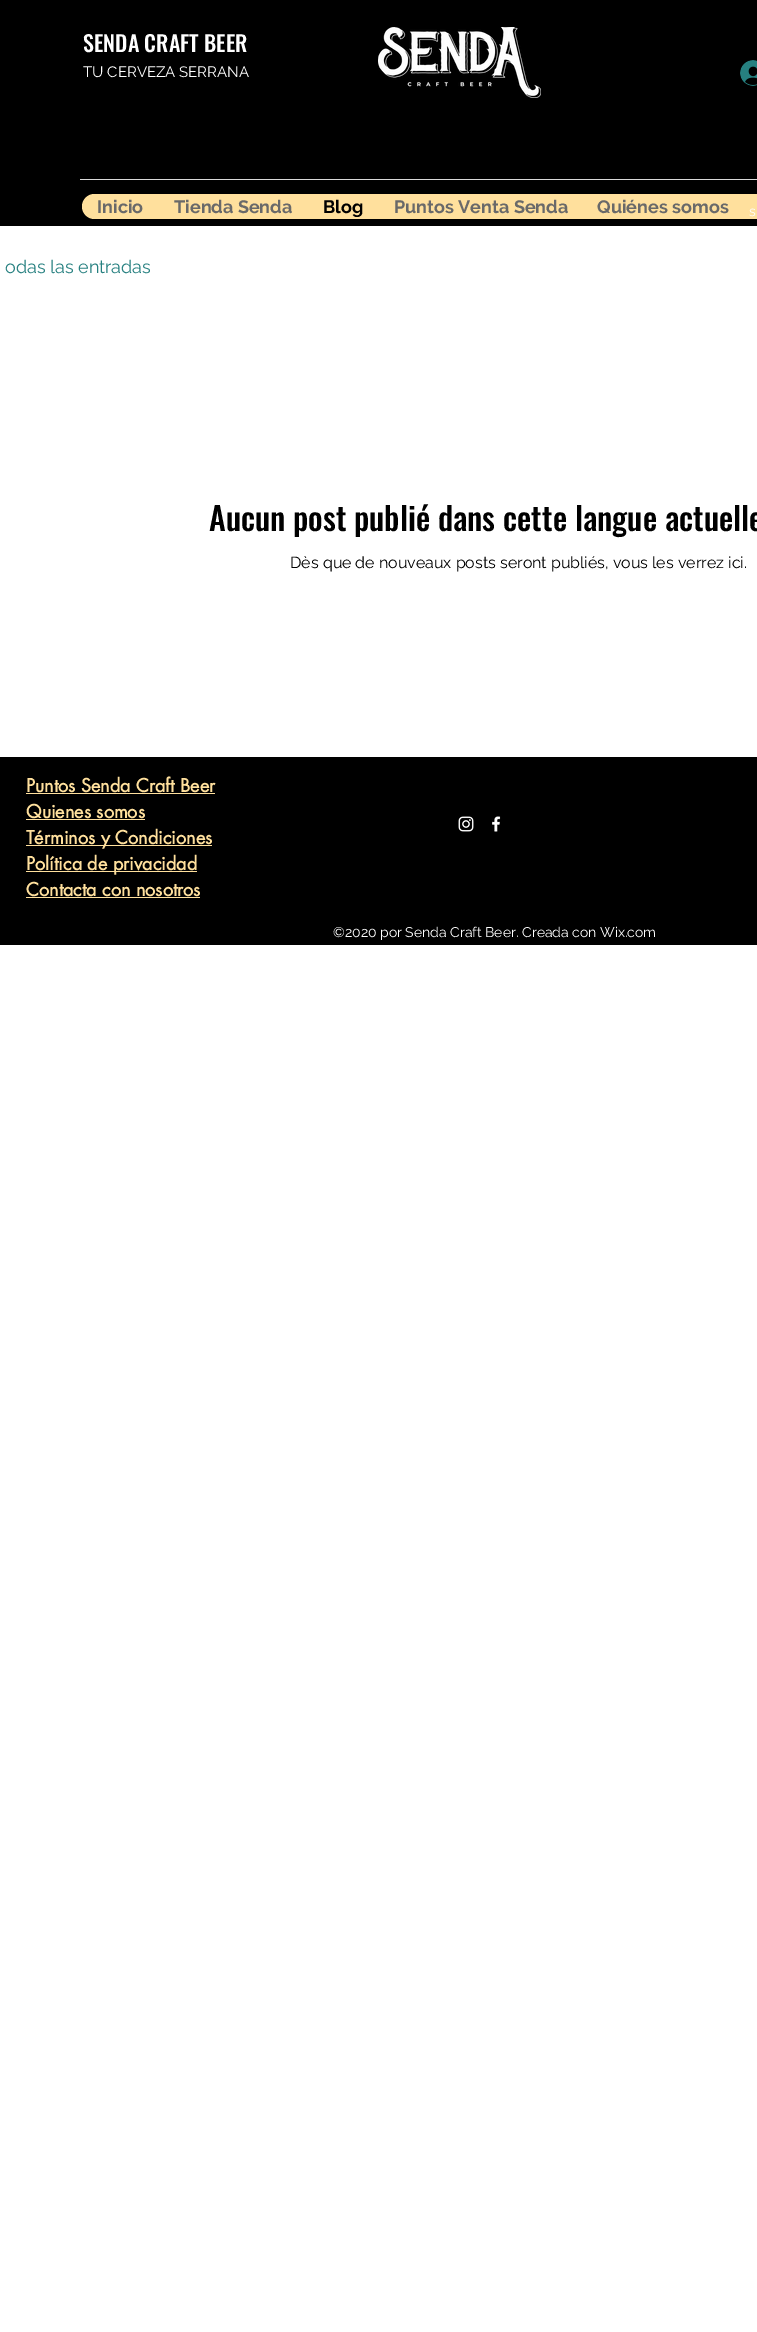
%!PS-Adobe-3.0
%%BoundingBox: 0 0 757 2332
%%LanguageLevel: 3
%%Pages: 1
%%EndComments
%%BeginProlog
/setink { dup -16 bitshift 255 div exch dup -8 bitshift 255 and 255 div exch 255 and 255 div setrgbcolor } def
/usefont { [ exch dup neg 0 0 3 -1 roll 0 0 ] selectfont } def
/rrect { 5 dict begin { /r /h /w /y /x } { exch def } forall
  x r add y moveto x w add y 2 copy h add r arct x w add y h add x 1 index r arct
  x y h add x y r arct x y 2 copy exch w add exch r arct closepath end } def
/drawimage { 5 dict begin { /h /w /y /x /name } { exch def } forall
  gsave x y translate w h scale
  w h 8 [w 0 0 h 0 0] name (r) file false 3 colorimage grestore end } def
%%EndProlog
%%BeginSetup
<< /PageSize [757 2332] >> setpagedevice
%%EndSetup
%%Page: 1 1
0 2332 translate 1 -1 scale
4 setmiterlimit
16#FFFFFF setink
0 0 757 2332 rectfill
16#000000 setink
0 0 757 226 rectfill
/Oswald-Medium 22 usefont
16#FFFFFF setink
83 52 moveto (SENDA CRAFT BEER) show
/Raleway-Regular 15 usefont
83 77 moveto (TU CERVEZA SERRANA) show
(img1.raw) 740 60 17 26 drawimage
(img2.raw) 378 27 163 71 drawimage
16#D9D9D9 setink
80 179 677 1 rectfill
16#FFE09D setink
82 194 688 25 12.5 rrect fill
/Raleway-Bold 18 usefont
16#696969 setink
97 213 moveto (Inicio) show
174 213 moveto (Tienda Senda) show
16#000000 setink
323 213 moveto (Blog) show
16#696969 setink
394 213 moveto (Puntos Venta Senda) show
597 213 moveto (Quiénes somos) show
/Raleway-Regular 14 usefont
16#FFFFFF setink
749 216 moveto (s) show
/Raleway-Regular 18 usefont
16#268080 setink
5 273 moveto (odas las entradas) show
/Oswald-Medium 32 usefont
16#000000 setink
209 531 moveto (Aucun post publié dans cette langue actuelle) show
/Raleway-Regular 16 usefont
290 568 moveto (Dès que de nouveaux posts seront publiés, vous les verrez ici.) show
0 757 757 188 rectfill
/futura-Bold 18 usefont
16#FFE09D setink
26 792 moveto (Puntos Senda Craft Beer) show
26 793 189 1 rectfill
26 818 moveto (Quienes somos) show
26 819 119 1 rectfill
26 845 186 1 rectfill
26 844 moveto (Términos y Condiciones) show
26 871 171 1 rectfill
26 870 moveto (Política de privacidad) show
26 896 moveto (Contacta con nosotros) show
26 897 174 1 rectfill
(img3.raw) 458 816 16 16 drawimage
(img4.raw) 492 816 9 16 drawimage
/Raleway-Regular 14 usefont
16#FFFFFF setink
333 937 moveto (©2020 por Senda Craft Beer. Creada con Wix.com) show
showpage
%%EOF
